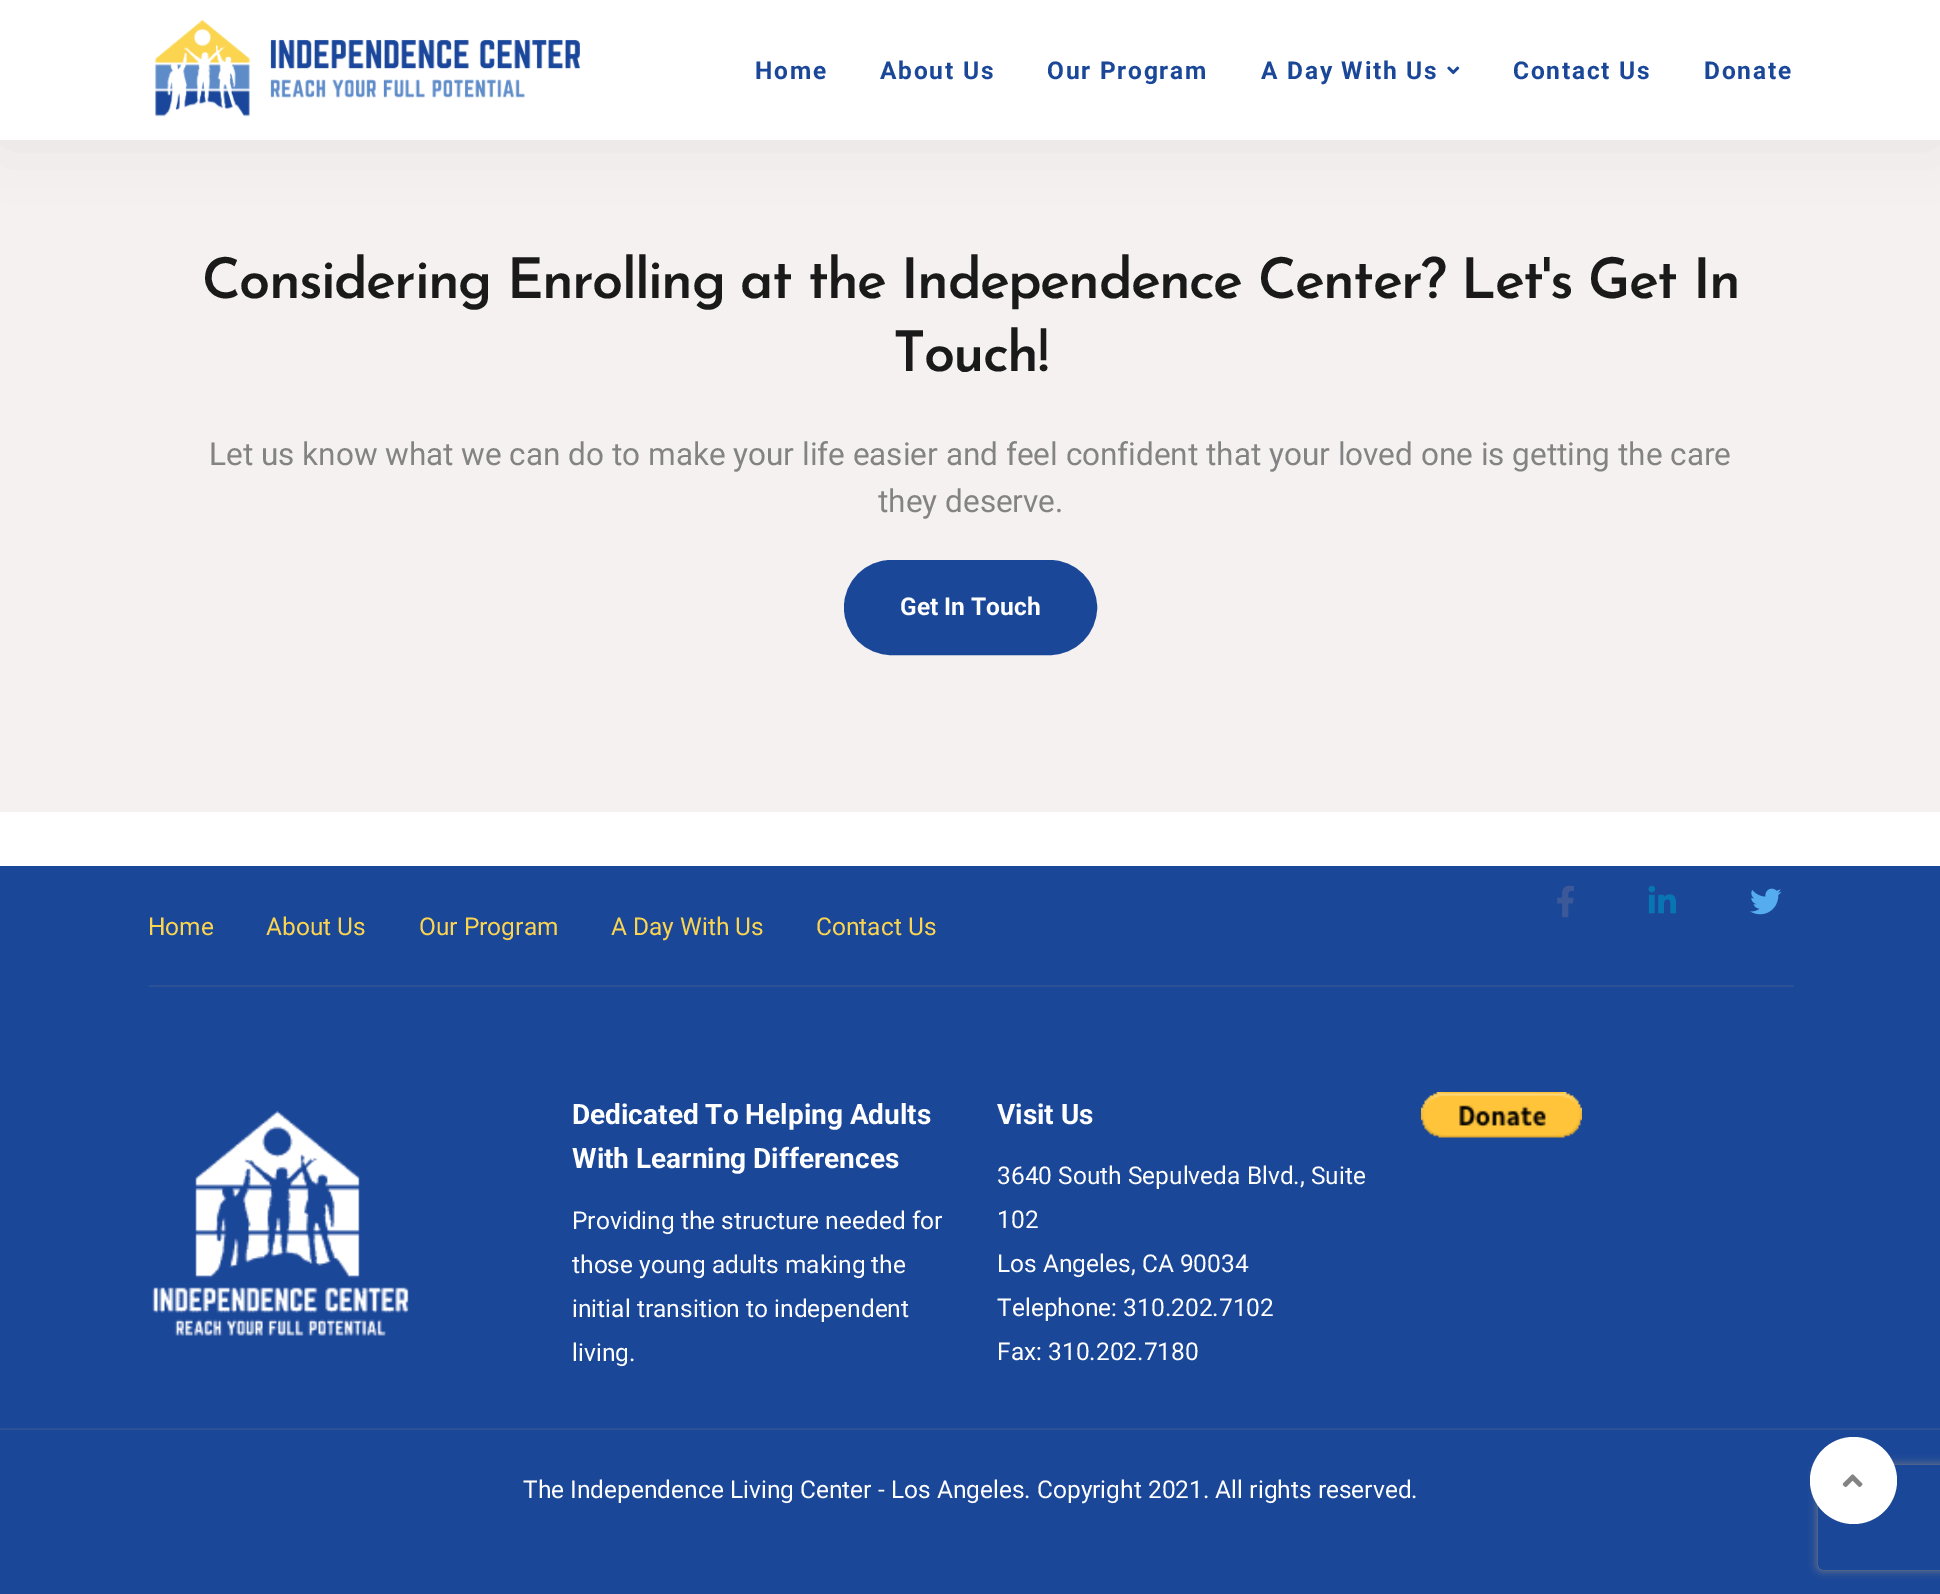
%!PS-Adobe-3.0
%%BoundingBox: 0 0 1940 1594
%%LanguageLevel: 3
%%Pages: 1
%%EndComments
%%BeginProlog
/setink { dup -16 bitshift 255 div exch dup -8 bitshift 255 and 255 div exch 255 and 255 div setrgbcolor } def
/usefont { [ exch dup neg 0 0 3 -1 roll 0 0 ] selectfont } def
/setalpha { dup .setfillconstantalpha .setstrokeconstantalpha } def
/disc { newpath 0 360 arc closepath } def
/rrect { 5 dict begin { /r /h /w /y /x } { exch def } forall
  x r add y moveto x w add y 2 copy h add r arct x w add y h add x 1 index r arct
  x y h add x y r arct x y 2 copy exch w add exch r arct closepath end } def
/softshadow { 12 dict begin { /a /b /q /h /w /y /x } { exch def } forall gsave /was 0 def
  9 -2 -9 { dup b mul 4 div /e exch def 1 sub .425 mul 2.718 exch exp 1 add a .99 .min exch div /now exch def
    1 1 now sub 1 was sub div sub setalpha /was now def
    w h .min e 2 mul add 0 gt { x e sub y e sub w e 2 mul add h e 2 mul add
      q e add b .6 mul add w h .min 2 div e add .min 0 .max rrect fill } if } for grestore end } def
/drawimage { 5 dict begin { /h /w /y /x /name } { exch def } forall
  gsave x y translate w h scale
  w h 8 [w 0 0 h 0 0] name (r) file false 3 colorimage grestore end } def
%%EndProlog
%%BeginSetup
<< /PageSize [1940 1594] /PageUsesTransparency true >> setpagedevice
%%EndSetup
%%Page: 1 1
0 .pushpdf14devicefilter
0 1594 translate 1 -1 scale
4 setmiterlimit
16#FFFFFF setink
0 0 1940 1594 rectfill
16#F4F1F0 setink
0 140 1940 672 rectfill
16#0F0F0F setink
0 4 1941 140 0 35 0.05 softshadow
16#FFFFFF setink
0 0 1940 140 rectfill
(img1.raw) 155 19 425 98 drawimage
/Roboto-Bold 24.5 usefont
16#1B4799 setink
755 79 moveto 1.75 0 (Home) ashow
880 79 moveto 1.75 0 (About Us) ashow
1047 79 moveto 1.75 0 (Our Program) ashow
1261 79 moveto 1.75 0 (A Day With Us) ashow
(img2.raw) 1447 66 13 9 drawimage
1513 79 moveto 1.75 0 (Contact Us) ashow
1704 79 moveto 1.75 0 (Donate) ashow
/JosefinSans-Thin 56 usefont
16#1A1A1A setink
202 298 moveto -1.68 0 (Considering Enrolling at the Independence Center? Let's Get In) ashow
893 371 moveto -1.68 0 (Touch!) ashow
/Roboto-Regular 31.5 usefont
16#838383 setink
209 465 moveto (Let us know what we can do to make your life easier and feel confident that your loved one is getting the care) show
878 512 moveto (they deserve.) show
16#1B4799 setink
846 562 249 91 45.5 rrect gsave fill grestore
4 setlinewidth
stroke
/Roboto-Bold 24.5 usefont
16#FFFFFF setink
900 615 moveto (Get In Touch) show
16#1B4799 setink
0 866 1940 562 rectfill
16#2D5195 setink
149 985 1645 2 rectfill
(img3.raw) 1557 885 17 33 drawimage
(img4.raw) 1648 885 28 29 drawimage
(img5.raw) 1750 888 32 27 drawimage
/Roboto-Regular 24.5 usefont
16#FCD550 setink
[
    [(Home) 148 935]
    [(About Us) 266 935]
    [(Our Program) 419 935]
    [(A Day With Us) 611 935]
    [(Contact Us) 816 935]
] { aload pop moveto show } forall
(img6.raw) 152 1110 257 226 drawimage
/Roboto-Bold 28 usefont
16#FFFFFF setink
572 1124 moveto (Dedicated To Helping Adults) show
572 1168 moveto (With Learning Differences) show
/Roboto-Regular 24.5 usefont
[
    [(Providing the structure needed for) 572 1229]
    [(those young adults making the) 572 1273]
    [(initial transition to independent) 572 1317]
    [(living.) 572 1361]
] { aload pop moveto show } forall
/Roboto-Bold 28 usefont
997 1124 moveto (Visit Us) show
/Roboto-Regular 24.5 usefont
[
    [(3640 South Sepulveda Blvd., Suite) 997 1184]
    [(102) 997 1228]
    [(Los Angeles, CA 90034) 997 1272]
    [(Telephone: 310.202.7102) 997 1316]
    [(Fax: 310.202.7180) 997 1360]
] { aload pop moveto show } forall
(img7.raw) 1421 1092 161 46 drawimage
16#1B4799 setink
0 1430 1940 164 rectfill
16#2D5195 setink
0 1428 1940 2 rectfill
16#FFFFFF setink
523 1498 moveto (The Independence Living Center - Los Angeles. Copyright 2021. All rights reserved.) show
gsave
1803 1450 moveto 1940 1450 lineto 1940 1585 lineto 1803 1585 lineto closepath 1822 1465 moveto 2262 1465 lineto 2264 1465 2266 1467 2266 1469 curveto 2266 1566 lineto 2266 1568 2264 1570 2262 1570 curveto 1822 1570 lineto 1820 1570 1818 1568 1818 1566 curveto 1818 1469 lineto 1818 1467 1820 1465 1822 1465 curveto closepath eoclip newpath
16#808080 setink
1818 1465 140 105 4 4.5 1 softshadow
grestore
1853.5 1480.5 43.5 disc fill
(img8.raw) 1842 1474 21 13 drawimage
.poppdf14devicefilter showpage
%%EOF
